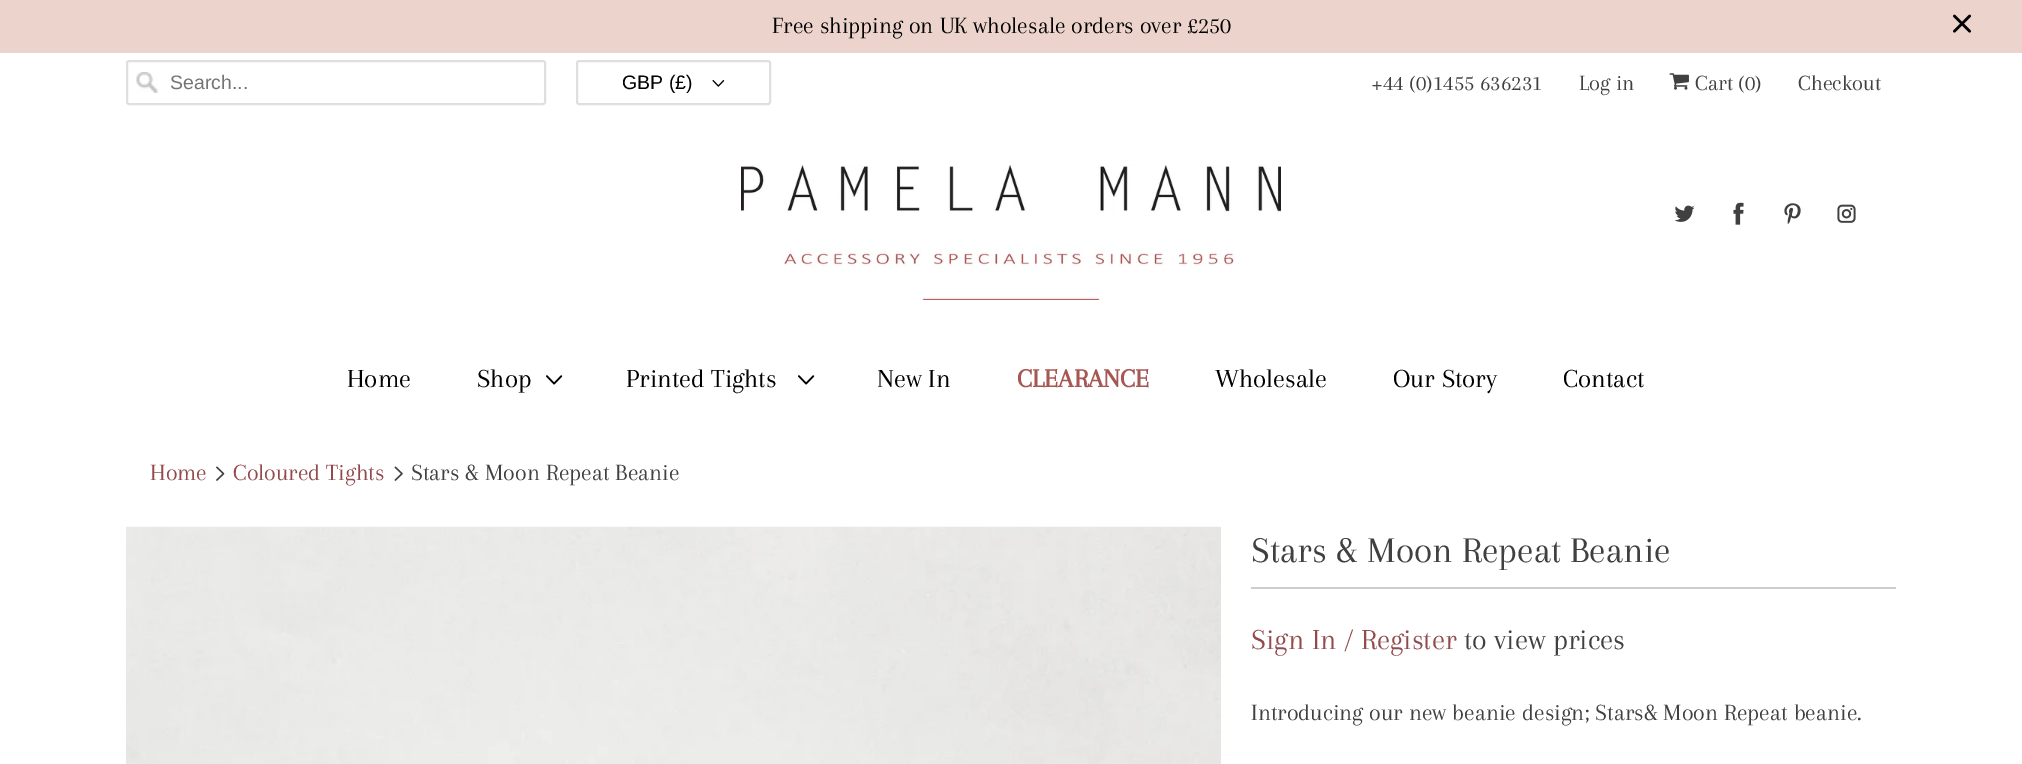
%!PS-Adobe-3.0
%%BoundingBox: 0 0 2022 764
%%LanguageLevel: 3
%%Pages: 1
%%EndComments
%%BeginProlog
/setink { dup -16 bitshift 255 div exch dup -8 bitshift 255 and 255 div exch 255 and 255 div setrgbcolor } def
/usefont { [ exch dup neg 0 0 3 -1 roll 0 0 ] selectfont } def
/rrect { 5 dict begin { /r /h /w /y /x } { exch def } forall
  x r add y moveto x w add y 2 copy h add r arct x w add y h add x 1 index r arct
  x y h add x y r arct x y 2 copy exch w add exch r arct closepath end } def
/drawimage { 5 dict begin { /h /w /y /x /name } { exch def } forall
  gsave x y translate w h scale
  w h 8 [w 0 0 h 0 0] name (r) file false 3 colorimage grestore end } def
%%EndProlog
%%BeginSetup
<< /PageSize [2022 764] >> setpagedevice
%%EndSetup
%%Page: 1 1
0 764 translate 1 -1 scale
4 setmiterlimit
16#FFFFFF setink
0 0 2022 764 rectfill
16#ECD3CB setink
0 0 2022 53 rectfill
/Arapey-Regular 24 usefont
16#000000 setink
772 33 moveto (Free shipping on UK wholesale orders over £250) show
(img1.raw) 1953 14 18 19 drawimage
(img2.raw) 136 72 22 21 drawimage
16#DFDFDF setink
2 setlinewidth
127 61 418 43 2 rrect stroke
/LiberationSans-Regular 19.5 usefont
16#757575 setink
170 89 moveto (Search...) show
16#DFDFDF setink
577 61 193 43 2 rrect stroke
16#000000 setink
622 89 moveto (GBP \(£\)) show
(img3.raw) 712 80 13 7 drawimage
/Arapey-Regular 22.5 usefont
16#404040 setink
1371 90 moveto (+44 \(0\)1455 636231) show
1579 90 moveto (Log in) show
(img4.raw) 1669 73 20 17 drawimage
1695 90 moveto (Cart \(0\)) show
1798 90 moveto (Checkout) show
(img5.raw) 741 165 540 135 drawimage
(img6.raw) 1674 205 21 17 drawimage
(img7.raw) 1733 202 11 23 drawimage
(img8.raw) 1784 203 17 22 drawimage
(img9.raw) 1837 204 19 19 drawimage
/Arapey-Regular 27 usefont
16#000000 setink
347 387 moveto (Home) show
477 387 moveto (Shop) show
(img10.raw) 546 375 17 10 drawimage
626 387 moveto (Printed Tights) show
(img10.raw) 798 375 17 10 drawimage
877 387 moveto (New In) show
/Arapey-Bold 27 usefont
16#A65754 setink
1017 387 moveto (CLEARANCE) show
/Arapey-Regular 27 usefont
16#000000 setink
[
    [(Wholesale) 1215 387]
    [(Our Story) 1393 387]
    [(Contact) 1563 387]
] { aload pop moveto show } forall
/Arapey-Regular 24 usefont
16#924A4D setink
150 480 moveto (Home) show
(img11.raw) 216 466 9 15 drawimage
233 480 moveto (Coloured Tights) show
(img12.raw) 394 466 9 15 drawimage
16#404040 setink
411 480 moveto (Stars & Moon Repeat Beanie) show
(img13.raw) 126 526 1095 238 drawimage
16#CDCDCD setink
1251 587 645 2 rectfill
/Arapey-Regular 37.5 usefont
16#404040 setink
1251 562 moveto (Stars & Moon Repeat Beanie) show
/Arapey-Regular 30 usefont
16#924A4D setink
1251 649 moveto (Sign In / Register) show
16#404040 setink
1464 649 moveto (to view prices) show
/Arapey-Regular 24 usefont
1251 720 moveto (Introducing our new beanie design; Stars& Moon Repeat beanie.) show
showpage
%%EOF
